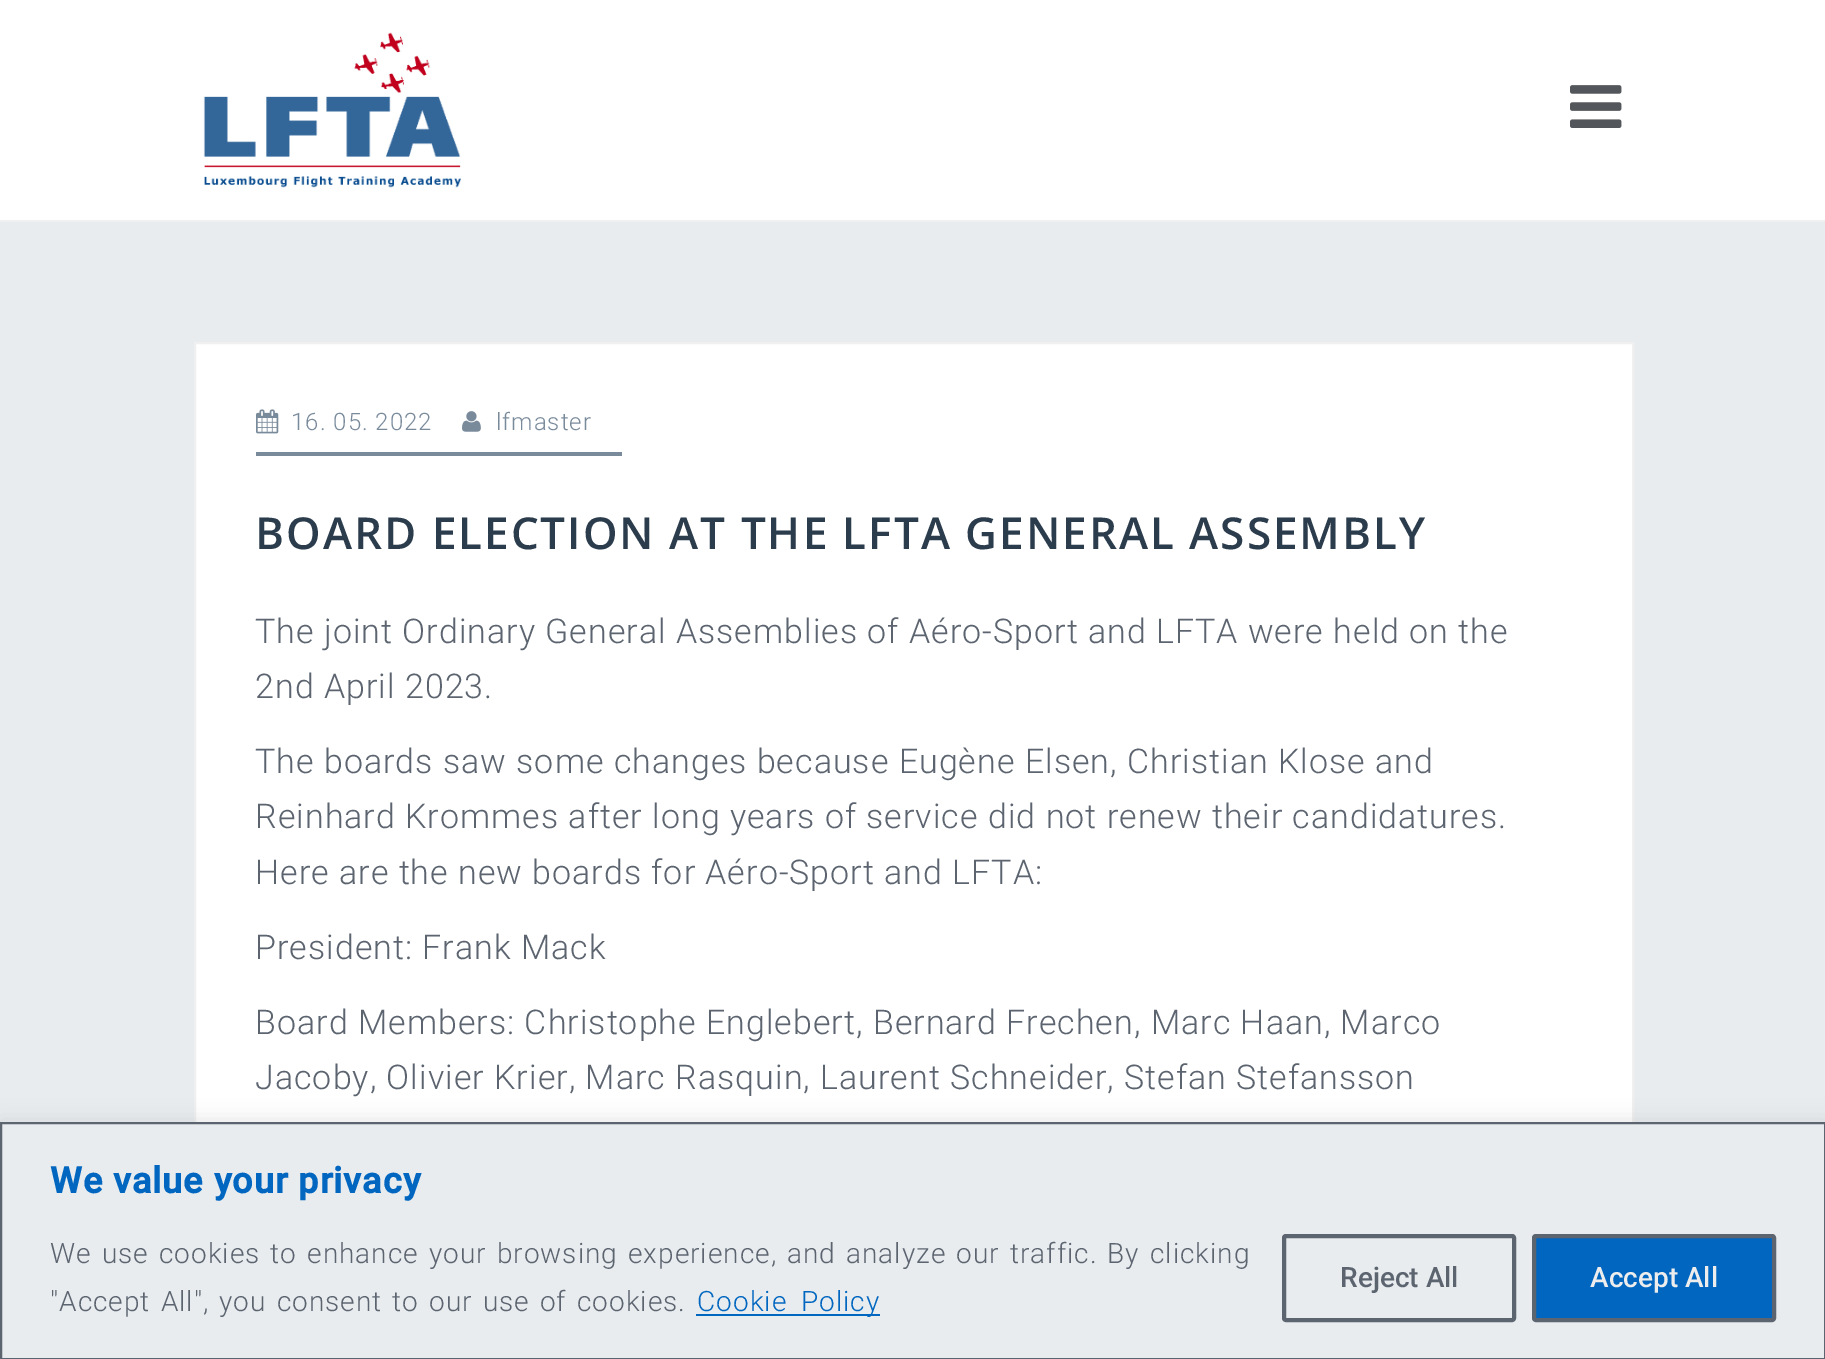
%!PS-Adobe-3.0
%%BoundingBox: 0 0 1825 1359
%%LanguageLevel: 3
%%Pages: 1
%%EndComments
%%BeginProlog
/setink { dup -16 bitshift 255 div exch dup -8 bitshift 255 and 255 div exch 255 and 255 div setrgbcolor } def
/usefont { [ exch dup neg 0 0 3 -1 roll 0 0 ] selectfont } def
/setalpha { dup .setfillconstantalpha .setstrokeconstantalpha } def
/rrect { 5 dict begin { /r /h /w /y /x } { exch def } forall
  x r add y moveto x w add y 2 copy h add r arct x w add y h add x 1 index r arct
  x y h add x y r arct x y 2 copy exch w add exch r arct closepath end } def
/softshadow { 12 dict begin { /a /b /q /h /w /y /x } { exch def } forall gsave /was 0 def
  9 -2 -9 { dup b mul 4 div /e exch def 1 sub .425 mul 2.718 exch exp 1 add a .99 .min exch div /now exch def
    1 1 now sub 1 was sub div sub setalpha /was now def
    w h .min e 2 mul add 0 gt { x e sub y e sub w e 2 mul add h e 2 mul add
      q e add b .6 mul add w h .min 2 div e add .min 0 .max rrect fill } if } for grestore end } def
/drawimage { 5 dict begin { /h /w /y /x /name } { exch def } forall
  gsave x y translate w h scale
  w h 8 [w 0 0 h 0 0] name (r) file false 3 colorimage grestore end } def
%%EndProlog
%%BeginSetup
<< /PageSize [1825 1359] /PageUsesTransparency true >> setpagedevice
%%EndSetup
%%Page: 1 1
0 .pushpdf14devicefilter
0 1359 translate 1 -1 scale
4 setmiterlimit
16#E8ECEF setink
0 0 1825 1359 rectfill
16#FFFFFF setink
0 0 1825 220 rectfill
16#F0F0F0 setink
0 220 1825 2 rectfill
(img1.raw) 203 32 258 156 drawimage
(img2.raw) 1570 85 52 43 drawimage
16#FFFFFF setink
196 344 1436 778 rectfill
16#F0F0F0 setink
2 setlinewidth
195 343 1438 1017 rectstroke
16#798A9B setink
256 452 366 4 rectfill
(img3.raw) 256 409 23 25 drawimage
/Roboto-Light 24 usefont
291 430 moveto 1 0 (16. 05. 2022) ashow
(img4.raw) 462 411 19 21 drawimage
496 430 moveto 1 0 (lfmaster) ashow
/OpenSans-SemiBold 44 usefont
16#2B3C4D setink
255 549 moveto 2 0 (BOARD ELECTION AT THE LFTA GENERAL ASSEMBLY) ashow
/Roboto-Light 34 usefont
16#5C6470 setink
255 643 moveto 1 0 (The joint Ordinary General Assemblies of Aéro-Sport and LFTA were held on the) ashow
255 698 moveto 1 0 (2nd April 2023.) ashow
255 773 moveto 1 0 (The boards saw some changes because Eugène Elsen, Christian Klose and) ashow
255 828 moveto 1 0 (Reinhard Krommes after long years of service did not renew their candidatures.) ashow
255 884 moveto 1 0 (Here are the new boards for Aéro-Sport and LFTA:) ashow
255 959 moveto 1 0 (President: Frank Mack) ashow
255 1034 moveto 1 0 (Board Members: Christophe Englebert, Bernard Frechen, Marc Haan, Marco) ashow
255 1089 moveto 1 0 (Jacoby, Olivier Krier, Marc Rasquin, Laurent Schneider, Stefan Stefansson) ashow
16#ACABAB setink
0 1120 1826 238 0 10 0.3 softshadow
16#E8ECEF setink
1 1123 moveto 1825 1123 lineto 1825 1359 lineto 1 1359 lineto closepath gsave fill grestore
16#5C6470 setink
stroke
/Roboto-Bold 36 usefont
16#0066BF setink
50 1193 moveto 1 0 (We value your privacy) ashow
/Roboto-Light 28 usefont
16#5C6470 setink
50 1263 moveto 2.25 0 32 1 0 (We use cookies to enhance your browsing experience, and analyze our traffic. By clicking) awidthshow
50 1311 moveto 2.25 0 32 1 0 ("Accept All", you consent to our use of cookies.) awidthshow
16#0066BF setink
696 1314 184 2 rectfill
697 1311 moveto 6 0 32 1 0 (Cookie Policy) awidthshow
16#5C6470 setink
4 setlinewidth
1284 1236 230 84 2 rrect stroke
/Roboto-Medium 28 usefont
1340 1287 moveto (Reject All) show
16#0066BF setink
1534 1236 240 84 2 rrect gsave fill grestore
16#5C6470 setink
stroke
16#EDEDED setink
1590 1287 moveto (Accept All) show
.poppdf14devicefilter showpage
%%EOF
